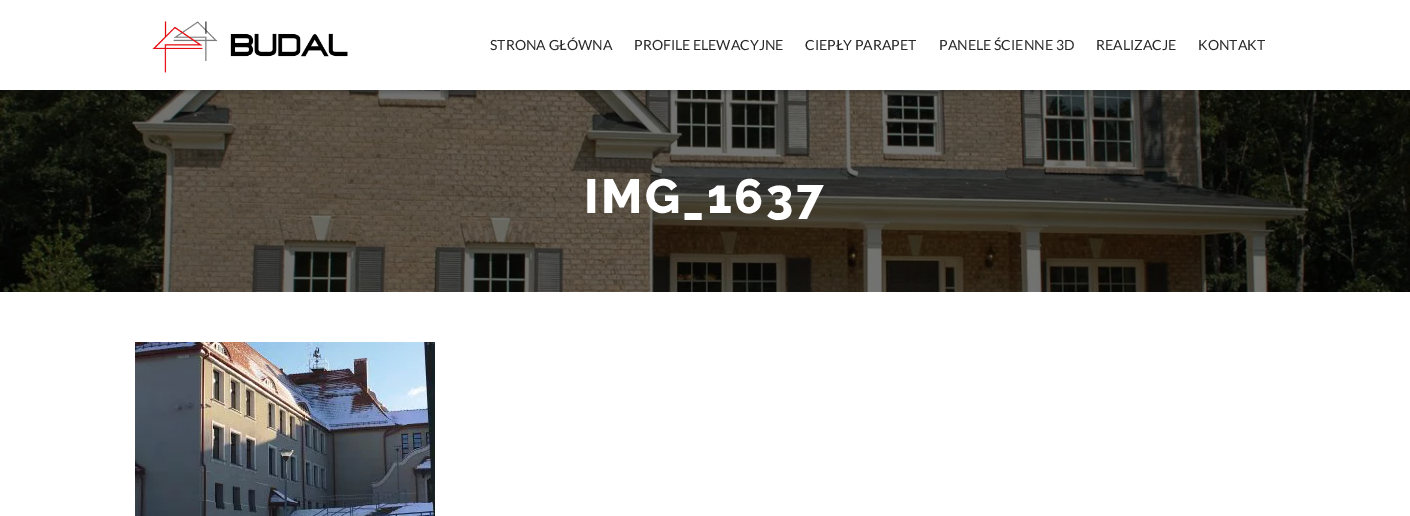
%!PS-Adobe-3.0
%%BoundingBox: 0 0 1410 516
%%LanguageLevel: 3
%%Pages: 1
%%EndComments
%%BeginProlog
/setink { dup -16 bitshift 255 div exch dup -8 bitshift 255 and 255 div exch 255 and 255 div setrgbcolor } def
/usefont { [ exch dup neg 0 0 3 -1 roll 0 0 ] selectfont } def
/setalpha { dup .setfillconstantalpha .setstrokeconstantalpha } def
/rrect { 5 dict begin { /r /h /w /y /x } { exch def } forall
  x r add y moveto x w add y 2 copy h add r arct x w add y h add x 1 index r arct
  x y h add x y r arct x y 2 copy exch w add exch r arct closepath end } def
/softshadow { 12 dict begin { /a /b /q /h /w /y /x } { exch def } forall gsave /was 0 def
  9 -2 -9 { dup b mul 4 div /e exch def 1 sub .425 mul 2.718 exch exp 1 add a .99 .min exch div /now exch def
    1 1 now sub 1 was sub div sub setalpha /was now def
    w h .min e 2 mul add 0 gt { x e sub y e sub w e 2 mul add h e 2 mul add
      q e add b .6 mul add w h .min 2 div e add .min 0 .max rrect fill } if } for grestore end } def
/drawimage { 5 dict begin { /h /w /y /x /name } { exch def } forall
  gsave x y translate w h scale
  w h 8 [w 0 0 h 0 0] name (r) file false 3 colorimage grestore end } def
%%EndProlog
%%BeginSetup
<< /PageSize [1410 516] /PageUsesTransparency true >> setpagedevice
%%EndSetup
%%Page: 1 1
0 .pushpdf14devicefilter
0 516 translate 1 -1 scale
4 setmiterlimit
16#FFFFFF setink
0 0 1410 516 rectfill
(img2.raw) 0 90 1410 202 drawimage
gsave
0 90 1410 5 rectclip
16#000000 setink
0 2 1410 90 0 2.5 0.22 softshadow
grestore
(img1.raw) 152 21 196 52 drawimage
/Lato-Regular 14 usefont
16#282828 setink
[
    [(STRONA GŁÓWNA) 490 50]
    [(PROFILE ELEWACYJNE) 634 50]
    [(CIEPŁY PARAPET) 805 50]
    [(PANELE ŚCIENNE 3D) 939 50]
    [(REALIZACJE) 1096 50]
    [(KONTAKT) 1198 50]
] { aload pop moveto show } forall
/Raleway-ExtraBold 48 usefont
16#FFFFFF setink
584 213 moveto 2.5 0 (IMG_1637) ashow
(img3.raw) 135 342 300 174 drawimage
.poppdf14devicefilter showpage
%%EOF
